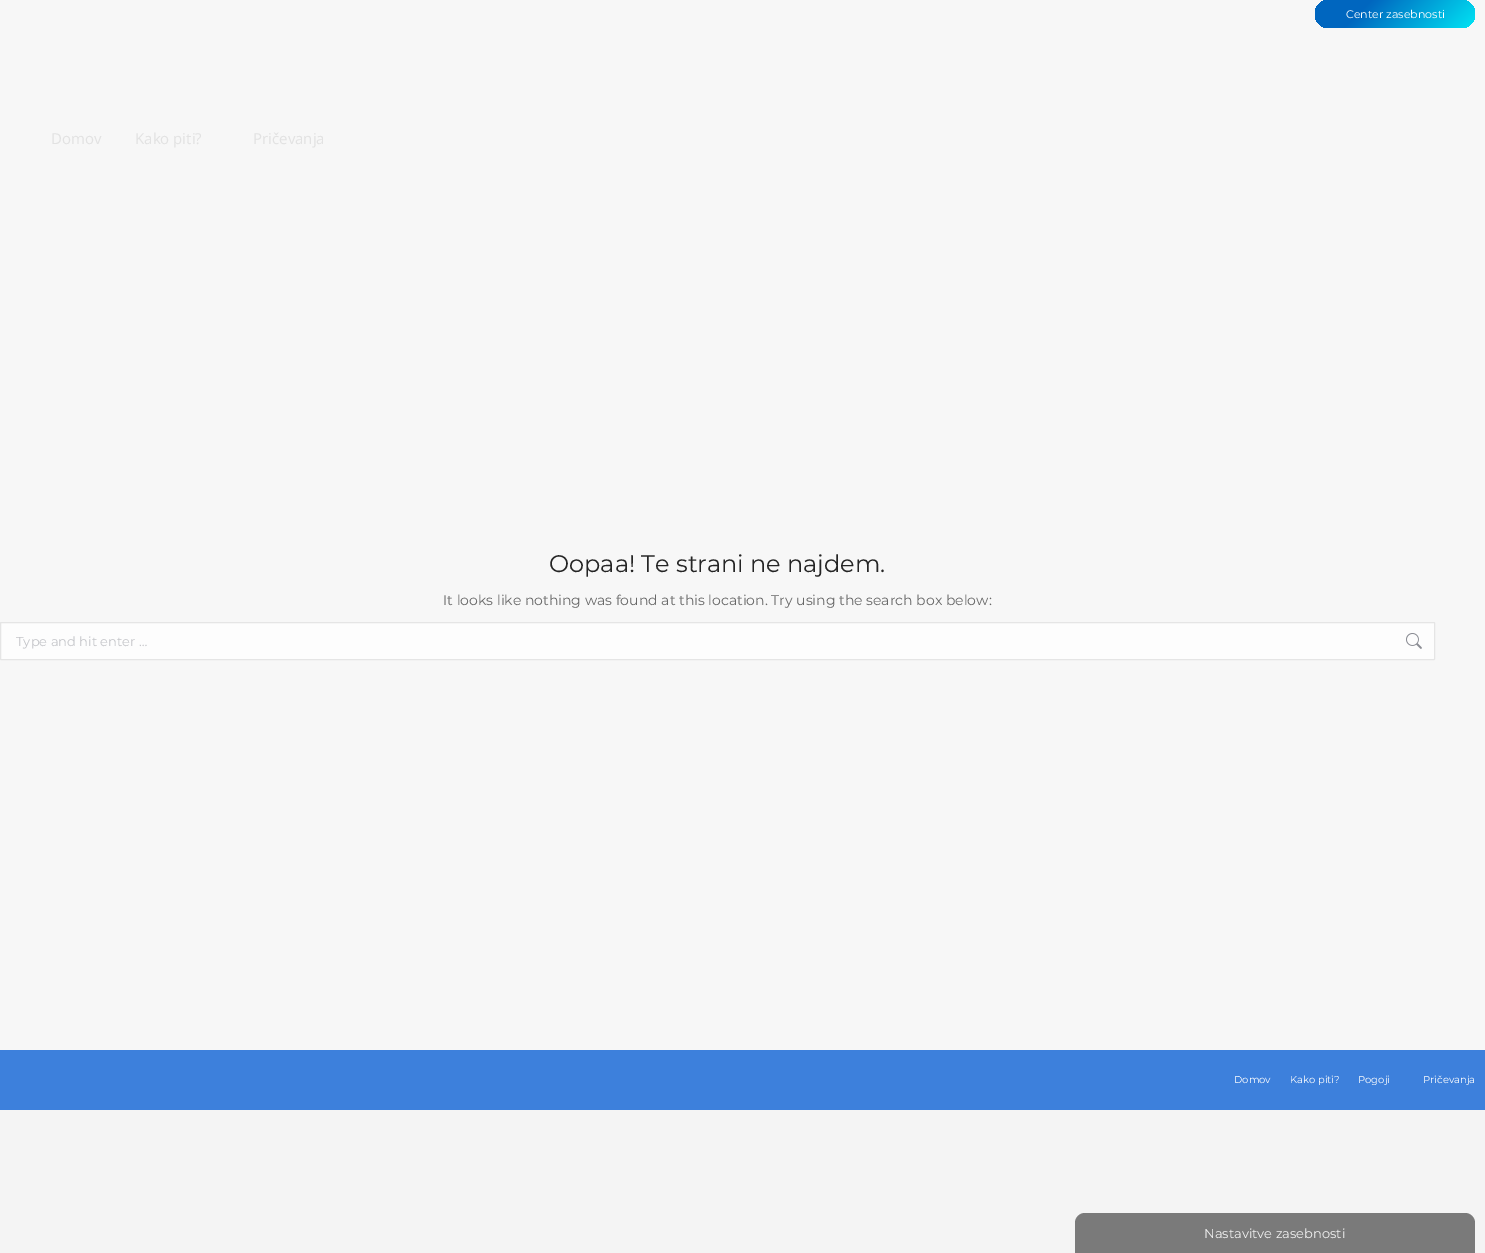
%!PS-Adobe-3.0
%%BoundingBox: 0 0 1485 1253
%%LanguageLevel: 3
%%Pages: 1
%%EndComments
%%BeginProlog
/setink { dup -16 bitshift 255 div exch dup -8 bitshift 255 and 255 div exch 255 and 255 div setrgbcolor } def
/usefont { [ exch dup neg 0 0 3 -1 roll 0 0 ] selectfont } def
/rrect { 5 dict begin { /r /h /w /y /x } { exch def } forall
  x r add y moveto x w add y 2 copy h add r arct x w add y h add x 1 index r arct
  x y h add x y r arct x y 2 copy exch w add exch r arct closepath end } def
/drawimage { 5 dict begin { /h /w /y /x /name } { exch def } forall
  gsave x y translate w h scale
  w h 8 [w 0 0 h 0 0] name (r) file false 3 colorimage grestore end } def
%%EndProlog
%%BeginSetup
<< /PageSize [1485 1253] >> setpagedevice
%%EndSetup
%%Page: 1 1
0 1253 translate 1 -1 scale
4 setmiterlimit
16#F4F4F4 setink
0 0 1485 1253 rectfill
16#F7F7F7 setink
0 0 1485 1050 rectfill
gsave 1315 0 160 28 14 rrect clip newpath
<< /ShadingType 2 /ColorSpace /DeviceRGB /Coords [1348 -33 1442 61] /Extend [true true] /Function << /FunctionType 3 /Domain [0 1] /Functions [<< /FunctionType 2 /Domain [0 1] /C0 [0 0.4 0.749] /C1 [0 0.4 0.749] /N 1 >> << /FunctionType 2 /Domain [0 1] /C0 [0 0.4 0.749] /C1 [0 0.894 0.957] /N 1 >>] /Bounds [0.3] /Encode [0 1 0 1] >> >> shfill grestore
/Montserrat-Regular 11 usefont
16#FFFFFF setink
1346 18 moveto (Center zasebnosti) show
/OpenSans-Regular 15 usefont
16#E2E2E2 setink
[
    [(Domov) 51 144]
    [(Kako piti?) 135 144]
    [(Pričevanja) 253 144]
] { aload pop moveto show } forall
/Montserrat-Regular 24 usefont
16#252525 setink
549 572 moveto (Oopaa! Te strani ne najdem.) show
/Montserrat-Regular 14 usefont
16#686868 setink
443 605 moveto (It looks like nothing was found at this location. Try using the search box below:) show
16#FDFDFD setink
0.5 622.5 1434 37 0.5 rrect gsave fill grestore
16#E5E5E5 setink
stroke
/Montserrat-Regular 13 usefont
16#C4C5C9 setink
16 646 moveto (Type and hit enter …) show
(img1.raw) 1406 633 16 16 drawimage
16#3D80DC setink
0 1050 1485 60 rectfill
/Montserrat-Regular 10 usefont
16#FFFFFF setink
[
    [(Domov) 1234 1083]
    [(Kako piti?) 1290 1083]
    [(Pogoji) 1358 1083]
    [(Pričevanja) 1423 1083]
] { aload pop moveto show } forall
16#7A7A7A setink
1085 1213 moveto 1465 1213 lineto 1470.5 1213 1475 1217.5 1475 1223 curveto 1475 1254 lineto 1075 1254 lineto 1075 1223 lineto 1075 1217.5 1079.5 1213 1085 1213 curveto closepath fill
/Montserrat-Regular 13 usefont
16#F2F2F2 setink
1204 1238 moveto (Nastavitve zasebnosti) show
showpage
%%EOF
